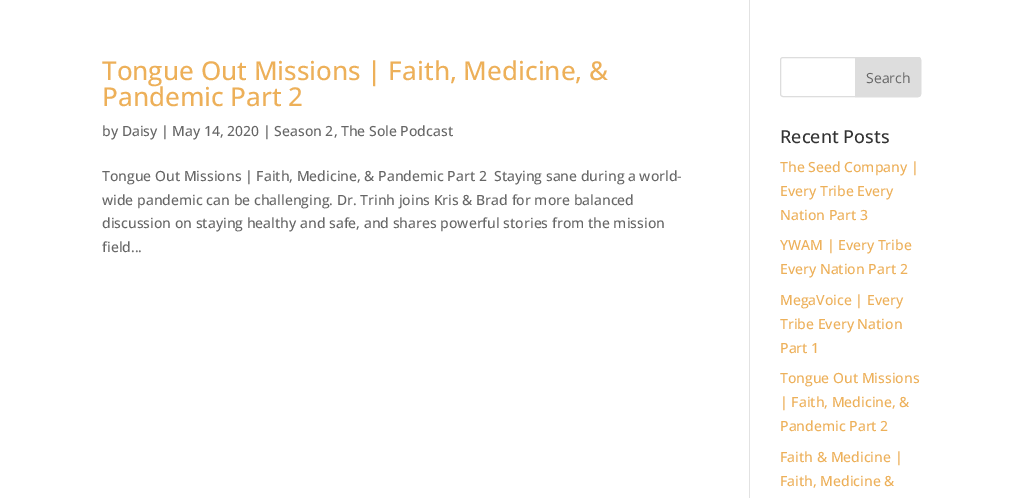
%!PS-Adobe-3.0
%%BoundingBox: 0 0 1023 498
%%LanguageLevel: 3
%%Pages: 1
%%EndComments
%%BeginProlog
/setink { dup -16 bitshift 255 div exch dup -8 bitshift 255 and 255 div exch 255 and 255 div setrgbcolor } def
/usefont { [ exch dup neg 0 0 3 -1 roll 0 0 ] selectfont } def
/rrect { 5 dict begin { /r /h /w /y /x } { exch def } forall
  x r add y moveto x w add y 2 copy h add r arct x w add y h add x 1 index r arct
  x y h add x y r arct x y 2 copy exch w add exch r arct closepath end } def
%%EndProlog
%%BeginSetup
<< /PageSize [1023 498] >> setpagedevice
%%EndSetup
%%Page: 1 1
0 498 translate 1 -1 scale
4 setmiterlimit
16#FFFFFF setink
0 0 1023 498 rectfill
16#E2E2E2 setink
749 0 1 498 rectfill
/OpenSans-Medium 26 usefont
16#EDB059 setink
102 80 moveto (Tongue Out Missions | Faith, Medicine, &) show
102 106 moveto (Pandemic Part 2) show
/OpenSans-Medium 14 usefont
16#666666 setink
[
    [(by Daisy | May 14, 2020 | Season 2, The Sole Podcast) 102 136]
    [(Tongue Out Missions | Faith, Medicine, & Pandemic Part 2  Staying sane during a world-) 102 181]
    [(wide pandemic can be challenging. Dr. Trinh joins Kris & Brad for more balanced) 102 205]
    [(discussion on staying healthy and safe, and shares powerful stories from the mission) 102 228]
    [(field...) 102 252]
] { aload pop moveto show } forall
16#DDDDDD setink
780.5 57.5 140 39 2.5 rrect stroke
855.5 57.5 moveto 918 57.5 lineto 919.5 57.5 920.5 58.5 920.5 60 curveto 920.5 94 lineto 920.5 95.5 919.5 96.5 918 96.5 curveto 855.5 96.5 lineto closepath gsave fill grestore
stroke
/OpenSans-Regular 14 usefont
16#666666 setink
866 83 moveto (Search) show
/OpenSans-Medium 18 usefont
16#333333 setink
780 143 moveto (Recent Posts) show
/OpenSans-Medium 14 usefont
16#EDB059 setink
[
    [(The Seed Company |) 780 172]
    [(Every Tribe Every) 780 196]
    [(Nation Part 3) 780 220]
    [(YWAM | Every Tribe) 780 250]
    [(Every Nation Part 2) 780 274]
    [(MegaVoice | Every) 780 305]
    [(Tribe Every Nation) 780 329]
    [(Part 1) 780 353]
    [(Tongue Out Missions) 780 383]
    [(| Faith, Medicine, &) 780 407]
    [(Pandemic Part 2) 780 431]
    [(Faith & Medicine |) 780 462]
    [(Faith, Medicine &) 780 486]
] { aload pop moveto show } forall
showpage
%%EOF
